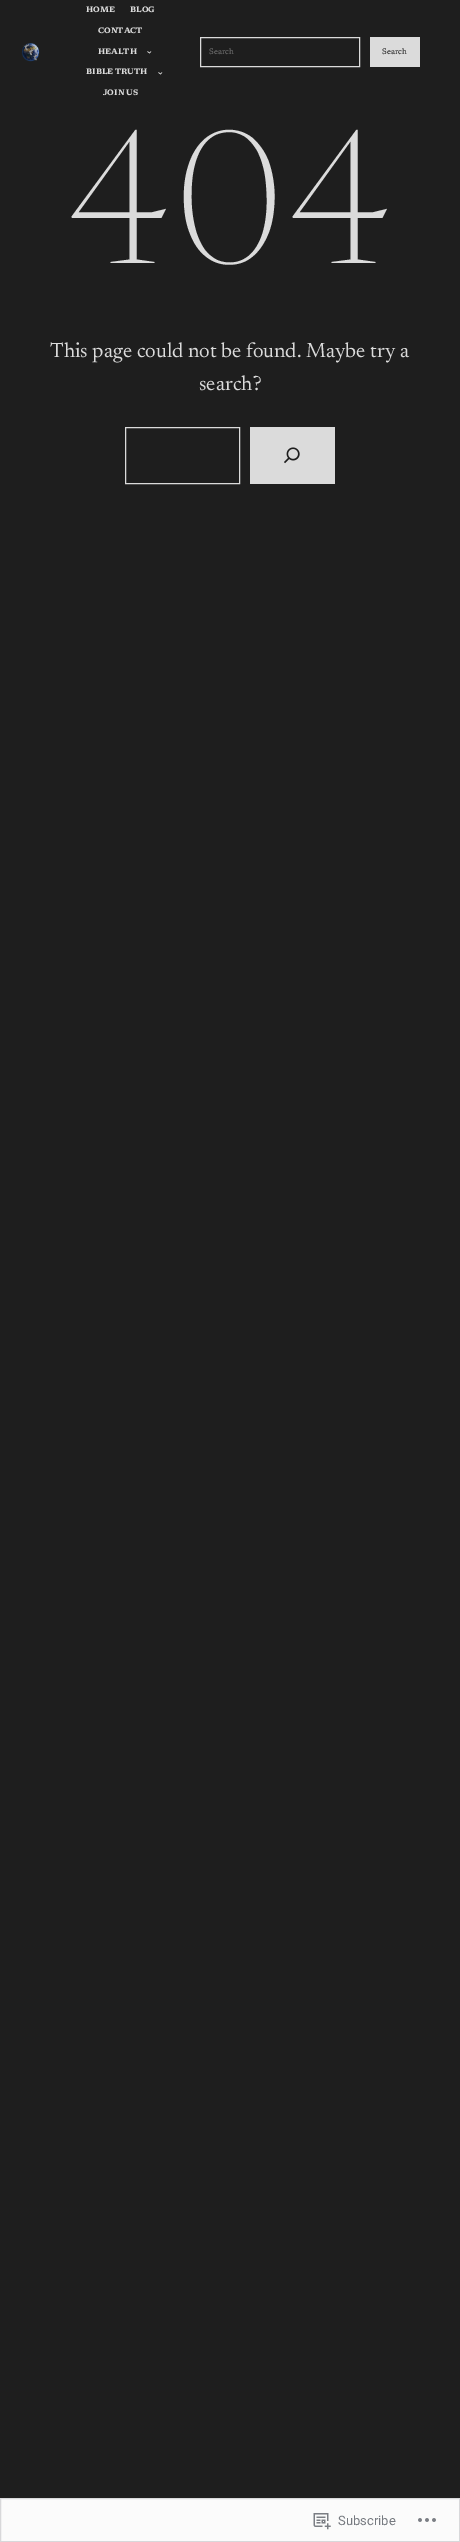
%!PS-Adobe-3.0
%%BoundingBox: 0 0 460 2542
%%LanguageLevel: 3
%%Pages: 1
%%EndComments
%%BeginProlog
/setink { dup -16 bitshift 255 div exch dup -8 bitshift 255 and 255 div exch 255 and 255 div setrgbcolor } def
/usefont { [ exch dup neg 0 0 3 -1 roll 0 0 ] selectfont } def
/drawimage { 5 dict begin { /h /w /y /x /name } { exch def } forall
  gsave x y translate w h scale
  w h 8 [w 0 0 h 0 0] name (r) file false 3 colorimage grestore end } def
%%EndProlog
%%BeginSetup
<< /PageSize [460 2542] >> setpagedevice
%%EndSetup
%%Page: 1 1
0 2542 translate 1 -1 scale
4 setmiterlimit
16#1E1E1E setink
0 0 460 2542 rectfill
(img1.raw) 22 43 18 19 drawimage
/Newsreader-Bold 8 usefont
16#DBDBDB setink
[
    [(HOME) 86 12]
    [(BLOG) 130 12]
    [(CONTACT) 98 33]
    [(HEALTH) 98 54]
] { aload pop moveto show } forall
0.6 setlinewidth
147.5 51.5 moveto 149.5 53 lineto 151 51.5 lineto 158.5 72.5 moveto 160.5 74 lineto 162 72.5 lineto stroke
86 74 moveto (BIBLE TRUTH) show
103 95 moveto (JOIN US) show
1 setlinewidth
200.5 37.5 159 29 rectstroke
/Newsreader-Regular 8 usefont
16#757575 setink
209 54 moveto (Search) show
16#DBDBDB setink
370 37 50 30 rectfill
16#1E1E1E setink
382 54 moveto (Search) show
/Newsreader-ExtraLight 184 usefont
16#DBDBDB setink
64 263 moveto (404) show
/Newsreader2-Regular 20.75 usefont
50 357 moveto (This page could not be found. Maybe try a) show
199 390 moveto (search?) show
125.5 427.5 114 56 rectstroke
250 427 85 57 rectfill
(img2.raw) 284 447 16 17 drawimage
16#FBFBFB setink
0.5 2498.5 moveto 459.5 2498.5 lineto 459.5 2541.5 lineto 0.5 2541.5 lineto closepath gsave fill grestore
16#D8D8DA setink
stroke
(img3.raw) 313 2513 18 17 drawimage
/Roboto-Regular 13 usefont
16#767A80 setink
338 2525 moveto (Subscribe) show
(img4.raw) 418 2518 18 4 drawimage
showpage
%%EOF
